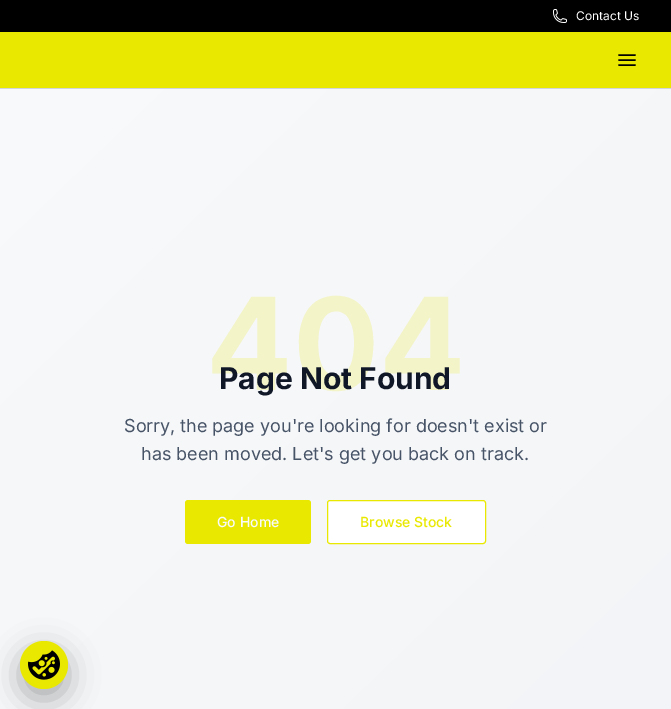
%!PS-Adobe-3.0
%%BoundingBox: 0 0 671 709
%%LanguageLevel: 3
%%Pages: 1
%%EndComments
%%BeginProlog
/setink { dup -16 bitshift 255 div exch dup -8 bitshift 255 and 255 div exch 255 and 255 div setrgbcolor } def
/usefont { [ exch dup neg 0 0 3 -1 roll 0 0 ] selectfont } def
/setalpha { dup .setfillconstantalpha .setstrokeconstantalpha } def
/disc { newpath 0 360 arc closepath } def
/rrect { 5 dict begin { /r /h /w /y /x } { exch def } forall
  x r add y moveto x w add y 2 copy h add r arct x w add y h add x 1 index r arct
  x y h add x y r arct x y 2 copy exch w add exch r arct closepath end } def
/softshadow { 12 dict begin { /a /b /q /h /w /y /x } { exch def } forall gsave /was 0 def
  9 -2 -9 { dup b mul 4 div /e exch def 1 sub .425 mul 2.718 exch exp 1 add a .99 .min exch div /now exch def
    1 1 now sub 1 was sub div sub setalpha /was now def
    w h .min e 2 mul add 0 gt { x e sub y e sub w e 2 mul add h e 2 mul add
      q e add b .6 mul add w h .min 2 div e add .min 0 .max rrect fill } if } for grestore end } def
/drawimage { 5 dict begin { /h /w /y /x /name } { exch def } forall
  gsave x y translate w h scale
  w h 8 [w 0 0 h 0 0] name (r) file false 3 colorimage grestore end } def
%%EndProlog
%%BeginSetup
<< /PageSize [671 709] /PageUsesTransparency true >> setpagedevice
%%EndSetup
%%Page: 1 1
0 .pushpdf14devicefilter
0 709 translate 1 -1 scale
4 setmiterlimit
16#000000 setink
0 0 671 709 rectfill
(img1.raw) 553 9 14 14 drawimage
/Inter-Regular 12 usefont
16#FFFFFF setink
576 20 moveto (Contact Us) show
16#E8E800 setink
0 32 671 56 rectfill
16#D0D5DD setink
0 88 671 1 rectfill
16#020201 setink
1.5 setlinewidth
1 setlinecap
1 setlinejoin
619 55 moveto 635 55 lineto 619 60 moveto 635 60 lineto 619 65 moveto 635 65 lineto stroke
gsave 0 89 moveto 671 89 lineto 671 709 lineto 0 709 lineto closepath clip newpath
<< /ShadingType 2 /ColorSpace /DeviceRGB /Coords [13 76 658 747] /Extend [true true] /Function << /FunctionType 2 /Domain [0 1] /C0 [0.976 0.98 0.984] /C1 [0.949 0.957 0.969] /N 1 >> >> shfill grestore
/Inter-Bold 128 usefont
16#F3F4C7 setink
206 390 moveto (404) show
/Inter-Bold 30 usefont
16#101828 setink
219 389 moveto (Page Not Found) show
/Inter-Regular 18 usefont
16#475467 setink
124 432 moveto (Sorry, the page you're looking for doesn't exist or) show
141 460 moveto (has been moved. Let's get you back on track.) show
16#E8E800 setink
185 500 126 44 3 rrect fill
/Inter-Medium 14 usefont
16#F8FAFC setink
217 527 moveto (Go Home) show
16#FFFFFF setink
327.5 500.5 158 43 2.5 rrect gsave fill grestore
16#E8E800 setink
1 setlinewidth
0 setlinecap
0 setlinejoin
stroke
360 527 moveto (Browse Stock) show
16#000002 setink
20 651 48 48 24 15 0.3 softshadow
16#E8E800 setink
44 665 24 disc fill
(img2.raw) 28 650 32 30 drawimage
.poppdf14devicefilter showpage
%%EOF
